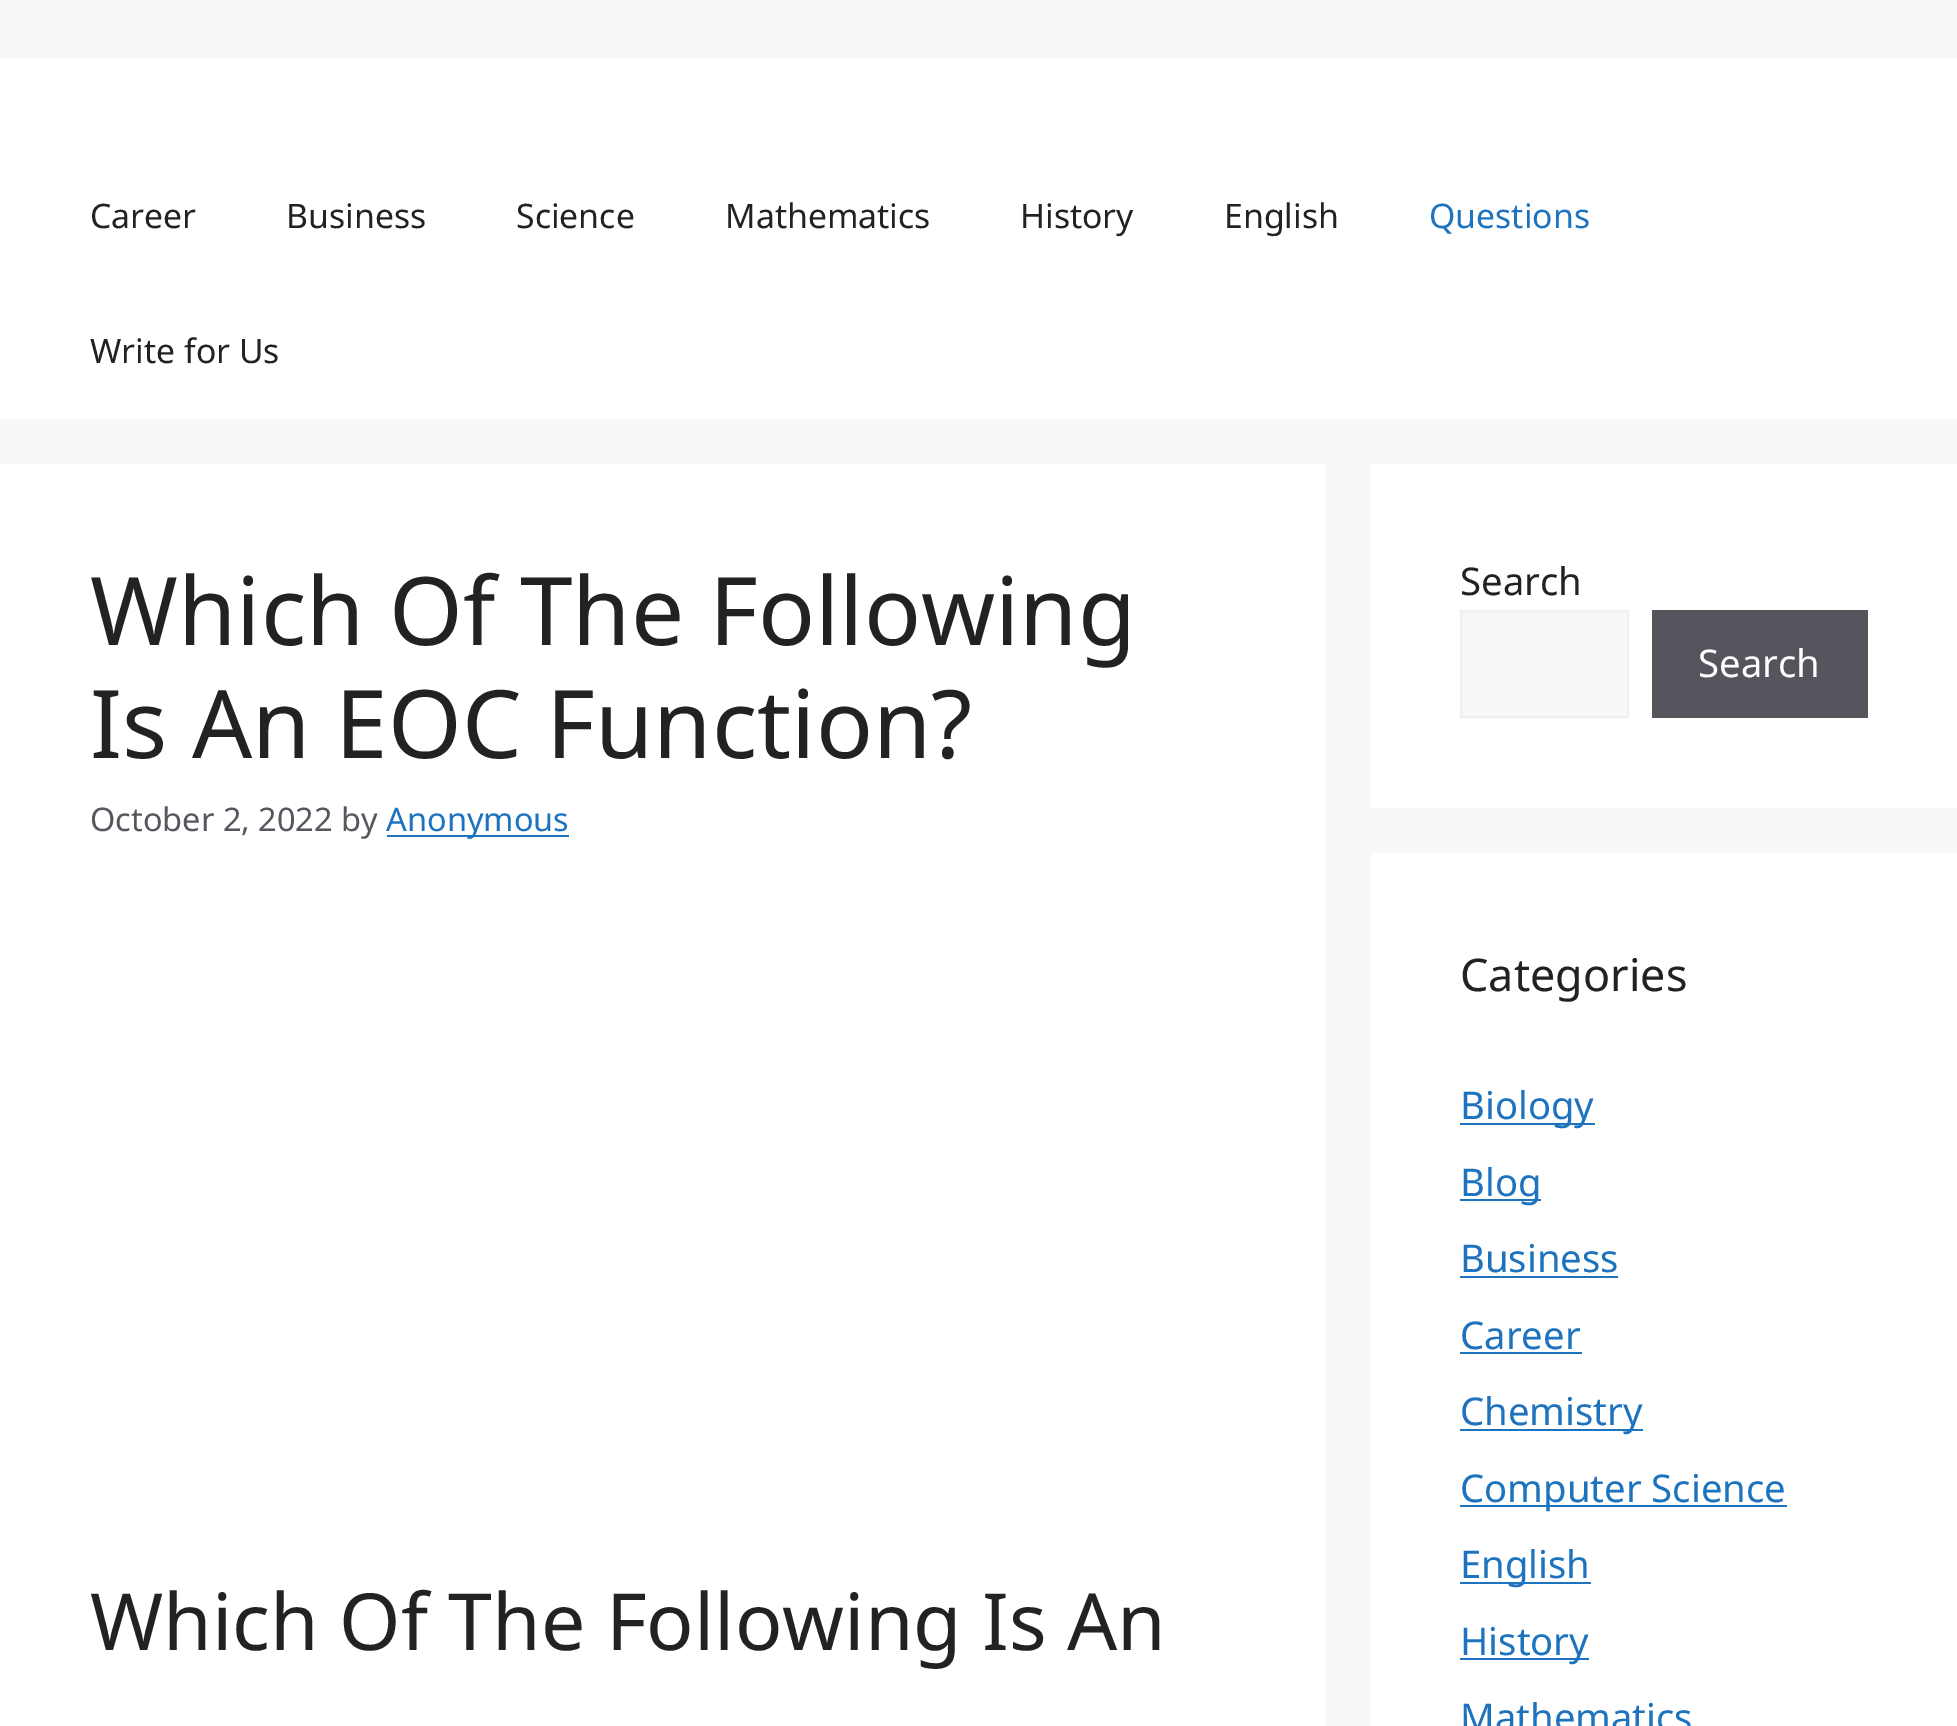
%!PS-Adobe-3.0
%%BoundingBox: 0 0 1957 1726
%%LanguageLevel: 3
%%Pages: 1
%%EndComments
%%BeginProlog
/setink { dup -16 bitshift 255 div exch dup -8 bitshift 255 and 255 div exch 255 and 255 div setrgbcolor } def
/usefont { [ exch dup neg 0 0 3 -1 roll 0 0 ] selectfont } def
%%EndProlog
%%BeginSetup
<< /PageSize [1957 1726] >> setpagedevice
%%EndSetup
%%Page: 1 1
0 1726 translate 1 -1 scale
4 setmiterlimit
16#F7F8F9 setink
0 0 1957 1726 rectfill
16#FFFFFF setink
0 59 1957 360 rectfill
/NotoSans-Regular 33.75 usefont
16#222222 setink
[
    [(Career) 90 228]
    [(Business) 286 228]
    [(Science) 516 228]
    [(Mathematics) 725 228]
    [(History) 1020 228]
    [(English) 1224 228]
] { aload pop moveto show } forall
16#1E73BE setink
1429 228 moveto (Questions) show
16#222222 setink
90 363 moveto (Write for Us) show
16#FFFFFF setink
0 464 1325 1262 rectfill
/NotoSans-Regular 94.5 usefont
16#222222 setink
90 645 moveto (Which Of The Following) show
90 758 moveto (Is An EOC Function?) show
/NotoSans-Regular 32.5 usefont
16#575760 setink
90 831 moveto (October 2, 2022 by) show
16#1E73BE setink
387 835 182 2 rectfill
386 831 moveto (Anonymous) show
/NotoSans-Regular 78.75 usefont
16#222222 setink
90 1650 moveto (Which Of The Following Is An) show
16#FFFFFF setink
1370 464 587 344 rectfill
/NotoSans-Regular 38.25 usefont
16#222222 setink
1460 595 moveto (Search) show
16#F7F8F9 setink
1461 611 moveto 1628 611 lineto 1628 717 lineto 1461 717 lineto closepath gsave fill grestore
16#F0F0F0 setink
2 setlinewidth
stroke
16#55555E setink
1652 610 216 108 rectfill
16#FFFFFF setink
1698 677 moveto (Search) show
1370 853 587 873 rectfill
/NotoSans-Regular 45 usefont
16#222222 setink
1460 991 moveto (Categories) show
16#1E73BE setink
1460 1123 135 2 rectfill
/NotoSans-Regular 38.25 usefont
1460 1119 moveto (Biology) show
1460 1199 81 2 rectfill
1460 1196 moveto (Blog) show
1460 1272 moveto (Business) show
1460 1276 158 2 rectfill
1460 1349 moveto (Career) show
1460 1352 122 2 rectfill
1460 1429 183 2 rectfill
1460 1425 moveto (Chemistry) show
1460 1505 327 2 rectfill
1460 1502 moveto (Computer Science) show
1460 1582 131 2 rectfill
1460 1578 moveto (English) show
1460 1658 129 2 rectfill
1460 1655 moveto (History) show
1460 1731 moveto (Mathematics) show
showpage
%%EOF
